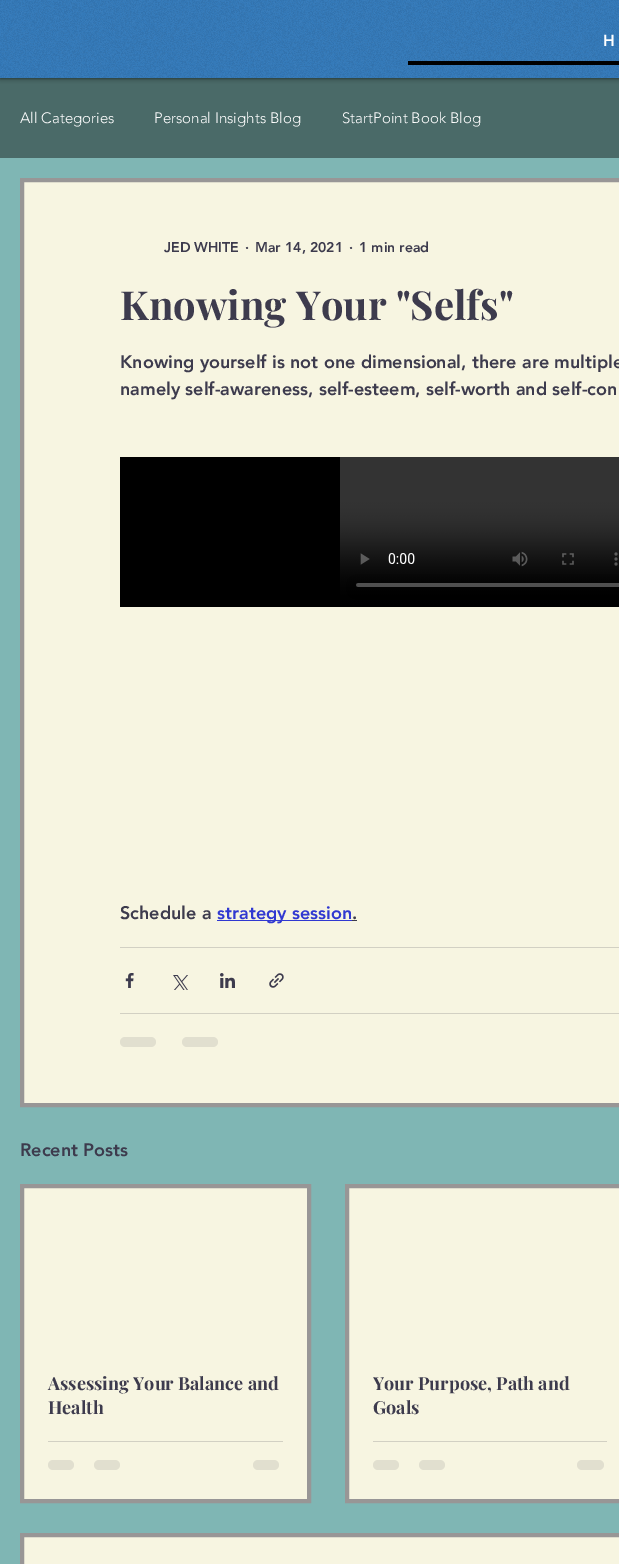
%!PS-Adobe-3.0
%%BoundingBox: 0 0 619 1564
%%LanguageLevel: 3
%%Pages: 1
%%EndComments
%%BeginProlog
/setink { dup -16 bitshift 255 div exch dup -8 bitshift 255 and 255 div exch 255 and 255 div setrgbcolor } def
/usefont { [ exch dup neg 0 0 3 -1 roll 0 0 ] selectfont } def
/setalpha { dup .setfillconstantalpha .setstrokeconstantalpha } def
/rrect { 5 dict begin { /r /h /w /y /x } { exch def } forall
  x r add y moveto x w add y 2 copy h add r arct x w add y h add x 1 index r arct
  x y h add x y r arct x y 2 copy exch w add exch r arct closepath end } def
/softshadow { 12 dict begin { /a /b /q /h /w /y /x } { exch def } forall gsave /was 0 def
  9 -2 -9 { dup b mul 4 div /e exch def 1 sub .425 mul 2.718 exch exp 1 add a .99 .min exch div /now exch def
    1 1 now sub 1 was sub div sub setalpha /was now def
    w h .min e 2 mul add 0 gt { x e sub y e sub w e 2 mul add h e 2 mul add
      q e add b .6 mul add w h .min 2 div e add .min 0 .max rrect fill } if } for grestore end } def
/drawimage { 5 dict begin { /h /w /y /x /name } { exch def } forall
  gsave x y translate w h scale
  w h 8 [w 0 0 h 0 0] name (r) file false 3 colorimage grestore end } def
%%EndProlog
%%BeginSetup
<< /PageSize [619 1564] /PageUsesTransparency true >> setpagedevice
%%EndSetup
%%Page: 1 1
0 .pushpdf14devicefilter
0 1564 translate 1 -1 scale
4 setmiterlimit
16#7FB6B4 setink
0 0 619 1564 rectfill
16#4A6A68 setink
0 78 619 80 rectfill
16#000000 setink
0 0 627 78 0 2.5 0.7 softshadow
16#347ABA setink
0 0 619 78 rectfill
(img1.raw) 0 0 619 78 drawimage
16#000000 setink
408 61 211 4 rectfill
/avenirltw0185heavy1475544-Black 16 usefont
16#FFFFFF setink
603 46 moveto (H) show
/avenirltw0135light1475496-Light 15 usefont
[
    [(All Categories) 20 123]
    [(Personal Insights Blog) 154 123]
    [(StartPoint Book Blog) 342 123]
] { aload pop moveto show } forall
16#F7F5E1 setink
22 180 moveto 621 180 lineto 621 1105 lineto 22 1105 lineto closepath gsave fill grestore
16#989696 setink
4 setlinewidth
stroke
/avenirltw0185heavy1475544-Black 14 usefont
16#3D3B4D setink
[
    [(JED WHITE) 164 252]
    [(·) 245 252]
    [(Mar 14, 2021) 255 252]
    [(·) 349 252]
    [(1 min read) 359 252]
] { aload pop moveto show } forall
/PlayfairDisplay-Bold 40 usefont
120 320 moveto (Knowing Your "Selfs") show
/avenirltw0185heavy1475544-Black 18 usefont
120 368 moveto (Knowing yourself is not one dimensional, there are multiple) show
120 395 moveto (namely self-awareness, self-esteem, self-worth and self-con) show
(img2.raw) 120 457 499 150 drawimage
120 919 moveto (Schedule a) show
16#3038D1 setink
217 920 135 1 rectfill
217 919 moveto (strategy session) show
16#3D3B4D setink
352 919 moveto (.) show
352 920 5 1 rectfill
16#D2D0C3 setink
120 947 499 1 rectfill
(img3.raw) 125 973 9 15 drawimage
(img4.raw) 173 975 15 15 drawimage
(img5.raw) 220 973 15 15 drawimage
(img6.raw) 269 973 15 15 drawimage
120 1013 499 1 rectfill
16#E1DFCF setink
120 1037 36 10 5 rrect fill
182 1037 36 10 5 rrect fill
16#3D3B4D setink
20 1156 moveto (Recent Posts) show
16#F7F5E1 setink
22 1186 moveto 309 1186 lineto 309 1501 lineto 22 1501 lineto closepath gsave fill grestore
16#989696 setink
stroke
/PlayfairDisplay-Bold 18 usefont
16#3D3B4D setink
48 1390 moveto (Assessing Your Balance and) show
48 1414 moveto (Health) show
16#D2D0C3 setink
48 1441 235 1 rectfill
16#E1DFCF setink
48 1460 26 10 5 rrect fill
94 1460 26 10 5 rrect fill
253 1460 26 10 5 rrect fill
16#F7F5E1 setink
347 1186 moveto 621 1186 lineto 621 1501 lineto 347 1501 lineto closepath gsave fill grestore
16#989696 setink
stroke
16#3D3B4D setink
373 1390 moveto (Your Purpose, Path and) show
373 1414 moveto (Goals) show
16#D2D0C3 setink
373 1441 234 1 rectfill
16#E1DFCF setink
373 1460 26 10 5 rrect fill
419 1460 26 10 5 rrect fill
577 1460 27 10 5 rrect fill
16#F7F5E1 setink
22 1535 moveto 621 1535 lineto 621 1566 lineto 22 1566 lineto closepath gsave fill grestore
16#989696 setink
stroke
.poppdf14devicefilter showpage
%%EOF
